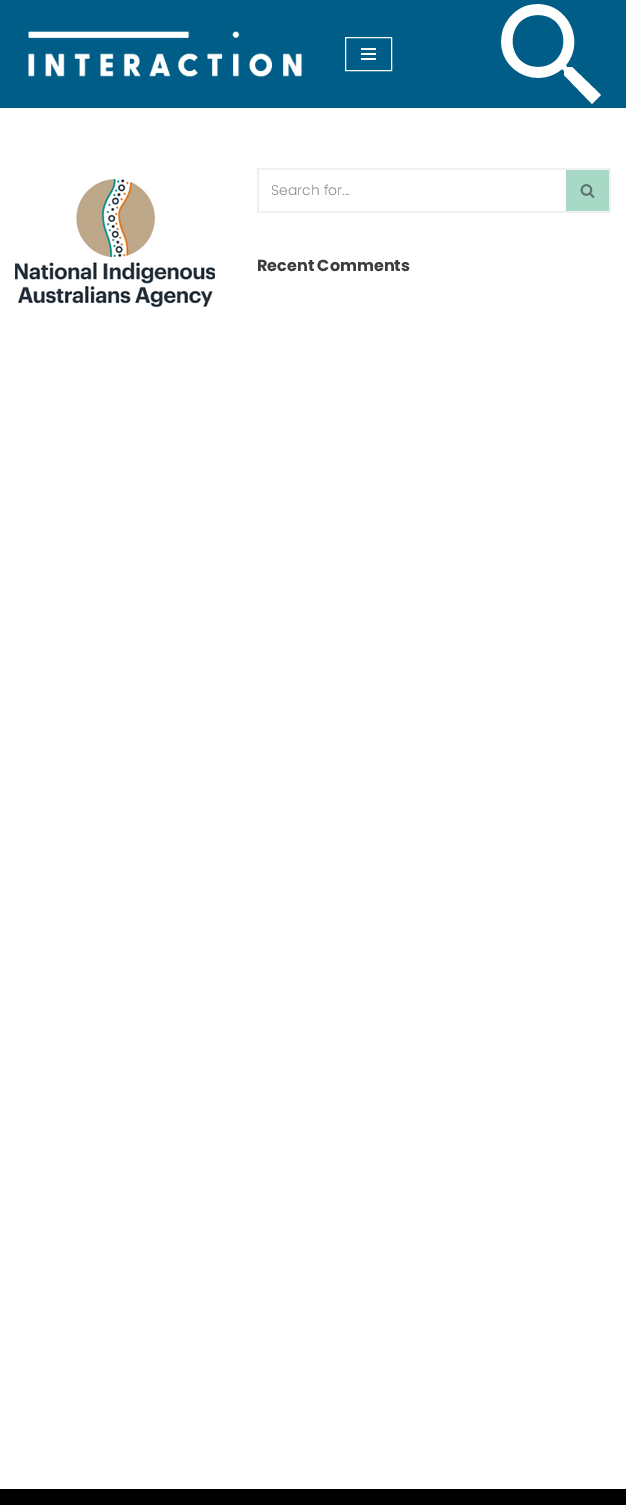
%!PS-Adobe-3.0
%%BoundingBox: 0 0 626 1505
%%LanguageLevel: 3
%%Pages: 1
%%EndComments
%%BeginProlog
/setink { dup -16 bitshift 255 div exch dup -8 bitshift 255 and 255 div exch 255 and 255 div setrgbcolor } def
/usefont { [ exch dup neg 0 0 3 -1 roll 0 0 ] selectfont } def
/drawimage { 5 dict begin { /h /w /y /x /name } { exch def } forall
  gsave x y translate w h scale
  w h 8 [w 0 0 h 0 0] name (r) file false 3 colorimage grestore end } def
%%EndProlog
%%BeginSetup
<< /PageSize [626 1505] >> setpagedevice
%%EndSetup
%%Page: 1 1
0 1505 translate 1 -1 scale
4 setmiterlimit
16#FFFFFF setink
0 0 626 1505 rectfill
16#005D87 setink
0 0 626 108 rectfill
(img1.raw) 28 31 274 46 drawimage
16#FFFFFF setink
345.5 37.5 46 33 rectstroke
[
    [361 48 15 2 16#FFFFFF]
    [361 53 15 2 16#FFFFFF]
    [361 58 15 2 16#FFFFFF]
] { aload pop setink rectfill } forall
572 67 moveto 567 67 lineto 566 65 lineto 587 39 565 -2 530 5 curveto 523 6 517 10 512 15 curveto 507 20 503 27 502 34 curveto 495 69 536 91 562 69 curveto 564 71 lineto 564 75 lineto 592 104 lineto 601 95 lineto closepath 538 67 moveto 504 67 504 15 538 15 curveto 572 15 572 67 538 67 curveto closepath fill
(img2.raw) 15 178 200 130 drawimage
[
    [257 168 354 2 16#F0EFF4]
    [257 211 309 2 16#F0EFF4]
    [257 168 2 45 16#F0EFF4]
] { aload pop setink rectfill } forall
/Poppins-Light 14 usefont
16#898989 setink
271 195 moveto (Search for...) show
[
    [566 170 43 41 16#A8D9C7]
    [609 168 2 45 16#F0EFF4]
    [566 211 45 2 16#F0EFF4]
] { aload pop setink rectfill } forall
(img3.raw) 580 184 15 14 drawimage
/Poppins-Bold 16 usefont
16#3E3D3D setink
257 271 moveto (Recent Comments) show
16#000000 setink
0 1489 626 16 rectfill
showpage
%%EOF
